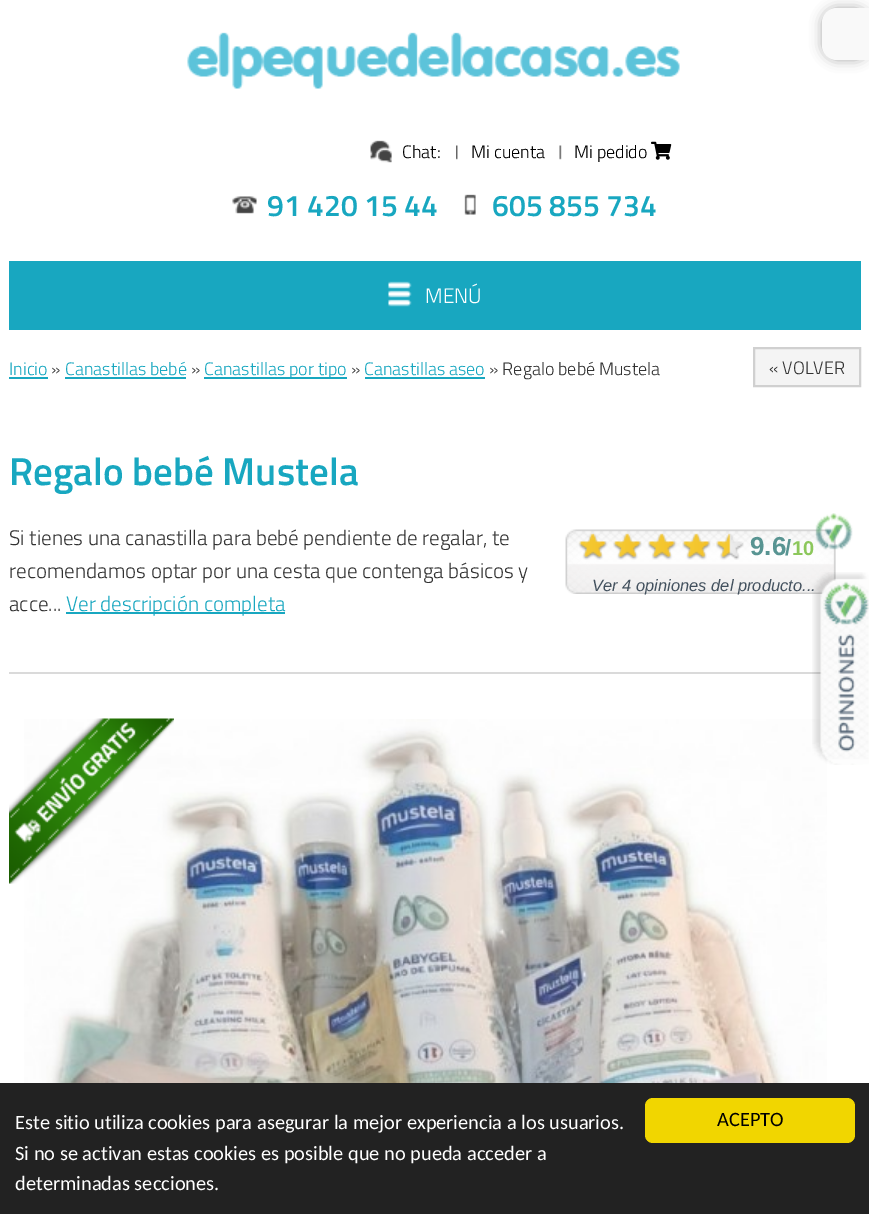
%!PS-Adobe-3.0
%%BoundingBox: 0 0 869 1214
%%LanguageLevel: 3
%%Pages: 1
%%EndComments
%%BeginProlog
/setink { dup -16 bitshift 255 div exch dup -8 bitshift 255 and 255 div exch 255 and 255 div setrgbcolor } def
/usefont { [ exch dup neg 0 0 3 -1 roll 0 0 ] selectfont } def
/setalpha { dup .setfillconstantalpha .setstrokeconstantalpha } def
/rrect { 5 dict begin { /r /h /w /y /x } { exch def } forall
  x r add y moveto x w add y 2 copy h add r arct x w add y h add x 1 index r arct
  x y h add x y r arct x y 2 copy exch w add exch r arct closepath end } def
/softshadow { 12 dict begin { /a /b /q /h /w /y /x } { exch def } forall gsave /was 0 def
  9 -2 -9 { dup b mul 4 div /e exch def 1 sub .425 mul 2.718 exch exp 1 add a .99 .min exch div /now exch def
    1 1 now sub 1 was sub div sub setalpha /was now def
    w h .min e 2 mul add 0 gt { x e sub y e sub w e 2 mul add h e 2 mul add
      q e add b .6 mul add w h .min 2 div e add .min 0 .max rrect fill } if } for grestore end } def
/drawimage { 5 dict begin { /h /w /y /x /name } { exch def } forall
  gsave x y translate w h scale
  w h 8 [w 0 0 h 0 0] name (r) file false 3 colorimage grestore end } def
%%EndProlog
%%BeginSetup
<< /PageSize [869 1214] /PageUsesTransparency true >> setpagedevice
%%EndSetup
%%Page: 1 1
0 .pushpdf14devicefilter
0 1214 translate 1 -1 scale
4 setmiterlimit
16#FFFFFF setink
0 0 869 1214 rectfill
16#AAAAAA setink
822 8 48 52 15 6 1 softshadow
16#F9F9F9 setink
837 8 moveto 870 8 lineto 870 60 lineto 837 60 lineto 828.5 60 822 53.5 822 45 curveto 822 23 lineto 822 14.5 828.5 8 837 8 curveto closepath fill
(img1.raw) 187 32 493 57 drawimage
(img2.raw) 370 140 22 23 drawimage
/TitilliumWeb-Light 18 usefont
16#000000 setink
402 158 moveto (Chat:) show
(img3.raw) 456 145 2 15 drawimage
471 158 moveto (Mi cuenta) show
(img4.raw) 559 145 3 15 drawimage
574 158 moveto (Mi pedido) show
(img5.raw) 651 141 21 19 drawimage
(img6.raw) 232 196 25 18 drawimage
/TitilliumWeb-SemiBold 30 usefont
16#18A7C0 setink
267 216 moveto (91 420 15 44) show
(img7.raw) 464 194 12 21 drawimage
492 216 moveto (605 855 734) show
9 261 852 69 rectfill
(img8.raw) 388 281 24 26 drawimage
/TitilliumWeb-Light 21 usefont
16#FFFFFF setink
425 303 moveto (MENÚ) show
/TitilliumWeb-Light 18 usefont
16#18A7C0 setink
9 375 moveto (Inicio) show
9 377 39 2 rectfill
16#333333 setink
51 375 moveto (») show
16#18A7C0 setink
65 375 moveto (Canastillas bebé) show
65 377 121 2 rectfill
16#333333 setink
191 375 moveto (») show
16#18A7C0 setink
204 377 143 2 rectfill
204 375 moveto (Canastillas por tipo) show
16#333333 setink
351 375 moveto (») show
16#18A7C0 setink
364 375 moveto (Canastillas aseo) show
365 377 120 2 rectfill
16#333333 setink
489 375 moveto (» Regalo bebé Mustela) show
16#F4F4F4 setink
754 348 moveto 860 348 lineto 860 386 lineto 754 386 lineto closepath gsave fill grestore
16#D0D0D0 setink
2 setlinewidth
stroke
16#333333 setink
769 374 moveto (« VOLVER) show
/TitilliumWeb-SemiBold 39 usefont
16#18A7C0 setink
9 485 moveto (Regalo bebé Mustela) show
16#DADADA setink
9 672 814 2 rectfill
/TitilliumWeb-Light 21 usefont
16#333333 setink
[
    [(Si tienes una canastilla para bebé pendiente de regalar, te) 9 545]
    [(recomendamos optar por una cesta que contenga básicos y) 9 578]
    [(acce...) 9 611]
] { aload pop moveto show } forall
16#18A7C0 setink
66 612 219 2 rectfill
66 611 moveto (Ver descripción completa) show
(img9.raw) 565 513 288 81 drawimage
(img10.raw) 578 533 30 27 drawimage
(img11.raw) 613 533 29 27 drawimage
(img12.raw) 647 533 30 27 drawimage
(img13.raw) 682 533 29 27 drawimage
(img14.raw) 716 533 28 27 drawimage
/LiberationSans-Bold 26 usefont
16#589492 setink
750 555 moveto (9.6) show
/LiberationSans-Bold 22 usefont
785 555 moveto (/) show
/LiberationSans-Bold 20 usefont
16#8CC75B setink
792 555 moveto (10) show
/LiberationSans-Italic 16.5 usefont
16#43515E setink
592 591 moveto (Ver 4 opiniones del producto...) show
(img16.raw) 24 719 803 364 drawimage
(img15.raw) 9 718 165 166 drawimage
(img17.raw) 812 572 57 193 drawimage
16#222222 setink
0 1083 869 131 rectfill
/Carlito-Regular 20.4 usefont
16#FFFFFF setink
[
    [(Este sitio utiliza cookies para asegurar la mejor experiencia a los usuarios.) 15 1129]
    [(Si no se activan estas cookies es posible que no pueda acceder a) 15 1160]
    [(determinadas secciones.) 15 1190]
] { aload pop moveto show } forall
16#F1D600 setink
645 1098 210 45 8 rrect fill
16#000000 setink
717 1126 moveto (ACEPTO) show
.poppdf14devicefilter showpage
%%EOF
